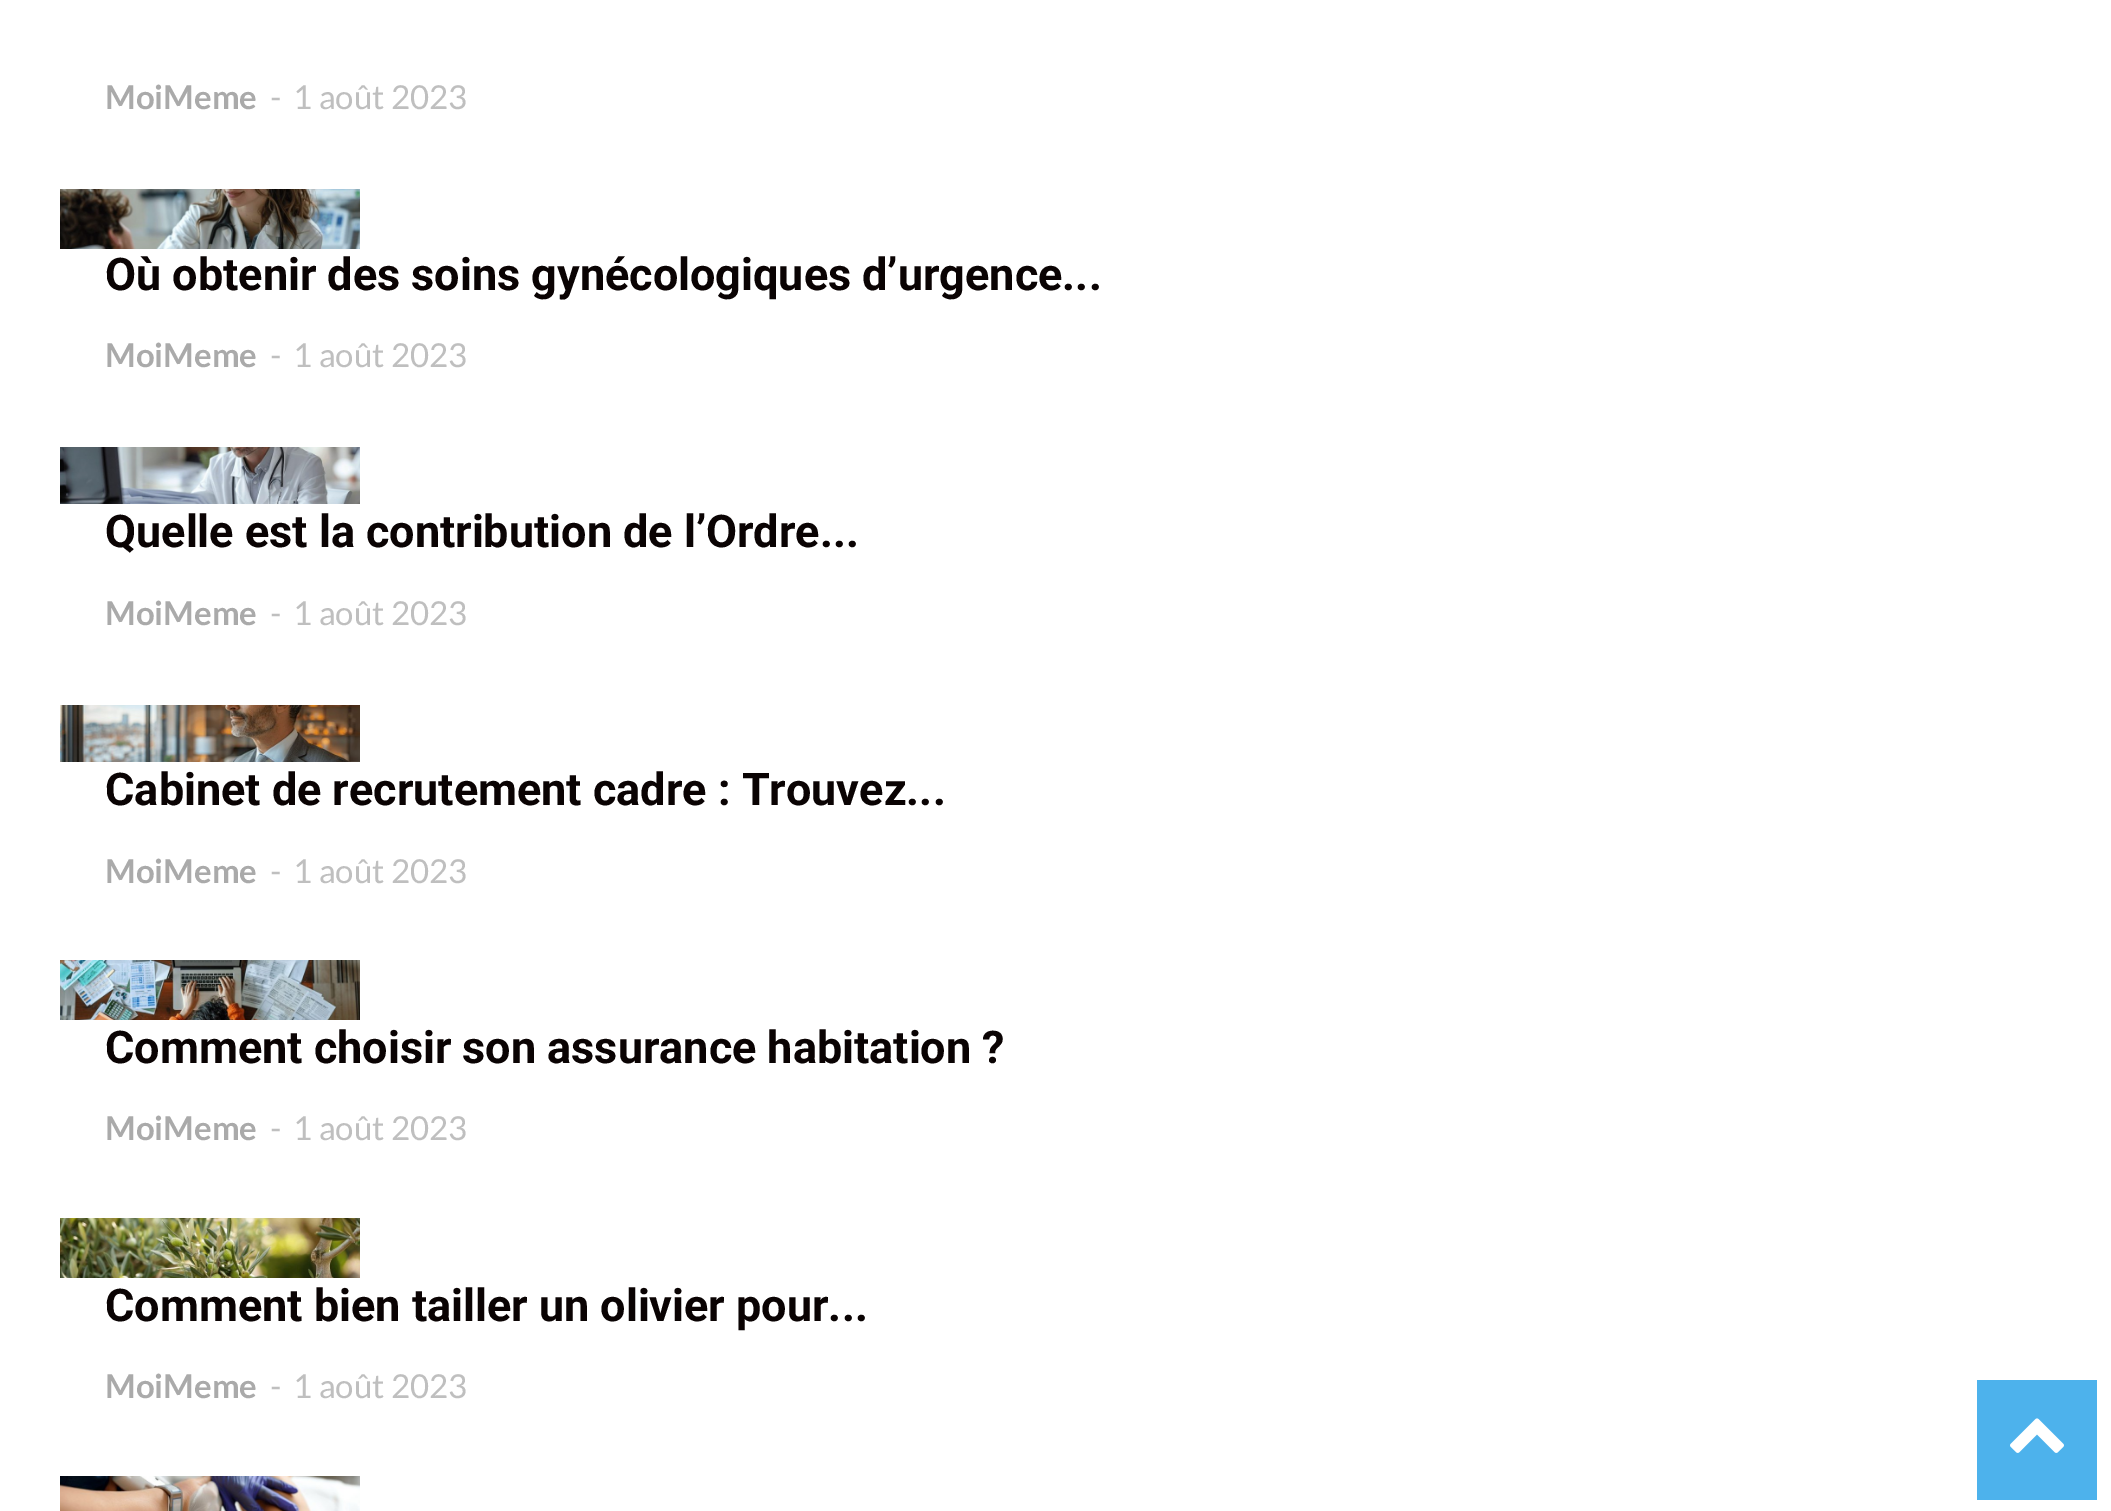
%!PS-Adobe-3.0
%%BoundingBox: 0 0 2111 1511
%%LanguageLevel: 3
%%Pages: 1
%%EndComments
%%BeginProlog
/setink { dup -16 bitshift 255 div exch dup -8 bitshift 255 and 255 div exch 255 and 255 div setrgbcolor } def
/usefont { [ exch dup neg 0 0 3 -1 roll 0 0 ] selectfont } def
/drawimage { 5 dict begin { /h /w /y /x /name } { exch def } forall
  gsave x y translate w h scale
  w h 8 [w 0 0 h 0 0] name (r) file false 3 colorimage grestore end } def
%%EndProlog
%%BeginSetup
<< /PageSize [2111 1511] >> setpagedevice
%%EndSetup
%%Page: 1 1
0 1511 translate 1 -1 scale
4 setmiterlimit
16#FFFFFF setink
0 0 2111 1511 rectfill
/Lato-Bold 33 usefont
16#AAAAAA setink
105 109 moveto (MoiMeme) show
/Lato-Regular 33 usefont
16#BFBFBF setink
270 109 moveto (-) show
293 109 moveto (1 août 2023) show
(img1.raw) 60 189 300 60 drawimage
/Roboto-Bold 45 usefont
16#0A0303 setink
105 290 moveto (Où obtenir des soins gynécologiques d’urgence...) show
/Lato-Bold 33 usefont
16#AAAAAA setink
105 367 moveto (MoiMeme) show
/Lato-Regular 33 usefont
16#BFBFBF setink
270 367 moveto (-) show
293 367 moveto (1 août 2023) show
(img2.raw) 60 447 300 57 drawimage
/Roboto-Bold 45 usefont
16#0A0303 setink
105 547 moveto (Quelle est la contribution de l’Ordre...) show
/Lato-Bold 33 usefont
16#AAAAAA setink
105 625 moveto (MoiMeme) show
/Lato-Regular 33 usefont
16#BFBFBF setink
270 625 moveto (-) show
293 625 moveto (1 août 2023) show
(img3.raw) 60 705 300 57 drawimage
/Roboto-Bold 45 usefont
16#0A0303 setink
105 805 moveto (Cabinet de recrutement cadre : Trouvez...) show
/Lato-Bold 33 usefont
16#AAAAAA setink
105 883 moveto (MoiMeme) show
/Lato-Regular 33 usefont
16#BFBFBF setink
270 883 moveto (-) show
293 883 moveto (1 août 2023) show
(img4.raw) 60 960 300 60 drawimage
/Roboto-Bold 45 usefont
16#0A0303 setink
105 1063 moveto (Comment choisir son assurance habitation ?) show
/Lato-Bold 33 usefont
16#AAAAAA setink
105 1140 moveto (MoiMeme) show
/Lato-Regular 33 usefont
16#BFBFBF setink
270 1140 moveto (-) show
293 1140 moveto (1 août 2023) show
(img5.raw) 60 1218 300 60 drawimage
/Roboto-Bold 45 usefont
16#0A0303 setink
105 1321 moveto (Comment bien tailler un olivier pour...) show
/Lato-Bold 33 usefont
16#AAAAAA setink
105 1398 moveto (MoiMeme) show
/Lato-Regular 33 usefont
16#BFBFBF setink
270 1398 moveto (-) show
293 1398 moveto (1 août 2023) show
(img6.raw) 60 1476 300 35 drawimage
16#4DB2EC setink
1977 1380 120 120 rectfill
(img7.raw) 2010 1418 54 35 drawimage
showpage
%%EOF
